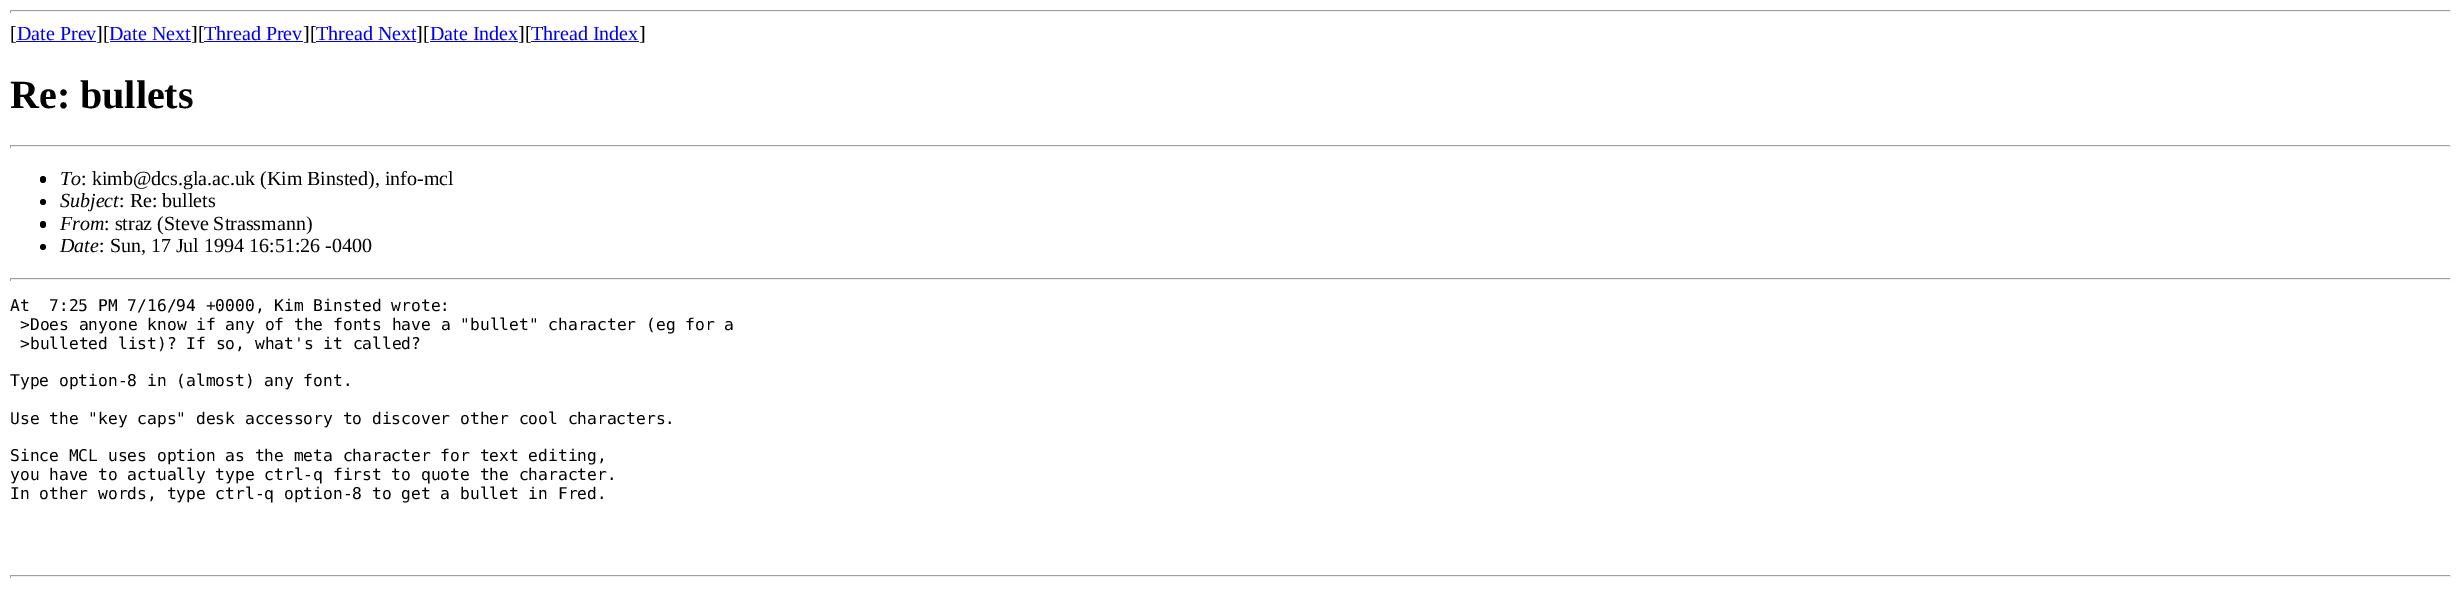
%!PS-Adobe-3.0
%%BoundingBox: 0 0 2461 598
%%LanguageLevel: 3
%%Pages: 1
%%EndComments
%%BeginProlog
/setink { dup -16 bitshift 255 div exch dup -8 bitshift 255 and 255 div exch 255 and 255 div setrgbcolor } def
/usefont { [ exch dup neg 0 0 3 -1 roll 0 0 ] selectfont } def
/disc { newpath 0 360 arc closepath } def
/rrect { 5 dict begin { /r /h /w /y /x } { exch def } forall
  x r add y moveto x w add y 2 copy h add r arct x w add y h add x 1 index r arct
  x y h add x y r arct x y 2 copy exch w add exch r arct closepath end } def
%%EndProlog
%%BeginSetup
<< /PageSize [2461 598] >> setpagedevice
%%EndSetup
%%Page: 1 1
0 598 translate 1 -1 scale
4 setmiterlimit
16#FFFFFF setink
0 0 2461 598 rectfill
[
    [10 10 2441 1 16#9F9F9F]
    [2450 10 1 3 16#EEEEEE]
    [10 11 2441 1 16#EEEEEE]
    [10 10 1 3 16#9F9F9F]
] { aload pop setink rectfill } forall
/LiberationSerif-Regular 20 usefont
16#000000 setink
10 40 moveto ([) show
16#0000EE setink
17 40 moveto (Date Prev) show
16 41 80 1 rectfill
16#000000 setink
96 40 moveto (][) show
16#0000EE setink
109 40 moveto (Date Next) show
110 41 81 1 rectfill
16#000000 setink
191 40 moveto (][) show
16#0000EE setink
204 40 moveto (Thread Prev) show
204 41 99 1 rectfill
16#000000 setink
303 40 moveto (][) show
16#0000EE setink
316 40 moveto (Thread Next) show
316 41 100 1 rectfill
16#000000 setink
416 40 moveto (][) show
16#0000EE setink
430 40 moveto (Date Index) show
430 41 88 1 rectfill
16#000000 setink
518 40 moveto (][) show
16#0000EE setink
531 40 moveto (Thread Index) show
531 41 108 1 rectfill
16#000000 setink
639 40 moveto (]) show
/LiberationSerif-Bold 40 usefont
10 108 moveto (Re: bullets) show
[
    [10 145 2441 1 16#9F9F9F]
    [2450 145 1 3 16#EEEEEE]
    [10 146 2441 1 16#EEEEEE]
    [10 145 1 3 16#9F9F9F]
] { aload pop setink rectfill } forall
16#000000 setink
40 176 6 7 3 rrect fill
/LiberationSerif-Italic 20 usefont
60 185 moveto (To) show
/LiberationSerif-Regular 20 usefont
81 185 moveto (: kimb@dcs.gla.ac.uk \(Kim Binsted\), info-mcl) show
43 202 3 disc fill
/LiberationSerif-Italic 20 usefont
60 207 moveto (Subject) show
/LiberationSerif-Regular 20 usefont
119 207 moveto (: Re: bullets) show
40 221 6 7 3 rrect fill
/LiberationSerif-Italic 20 usefont
60 230 moveto (From) show
/LiberationSerif-Regular 20 usefont
104 230 moveto (: straz \(Steve Strassmann\)) show
43 247 3 disc fill
/LiberationSerif-Italic 20 usefont
60 252 moveto (Date) show
/LiberationSerif-Regular 20 usefont
99 252 moveto (: Sun, 17 Jul 1994 16:51:26 -0400) show
[
    [10 278 2441 1 16#9F9F9F]
    [2450 278 1 3 16#EEEEEE]
    [10 279 2441 1 16#EEEEEE]
    [10 278 1 3 16#9F9F9F]
] { aload pop setink rectfill } forall
/DejaVuSansMono-Regular 16.25 usefont
16#000000 setink
[
    [(At  7:25 PM 7/16/94 +0000, Kim Binsted wrote:) 10 311]
    [(>Does anyone know if any of the fonts have a "bullet" character \(eg for a) 20 330]
    [(>bulleted list\)? If so, what's it called?) 20 349]
    [(Type option-8 in \(almost\) any font.) 10 386]
    [(Use the "key caps" desk accessory to discover other cool characters.) 10 424]
    [(Since MCL uses option as the meta character for text editing,) 10 461]
    [(you have to actually type ctrl-q first to quote the character.) 10 480]
    [(In other words, type ctrl-q option-8 to get a bullet in Fred.) 10 499]
] { aload pop moveto show } forall
[
    [10 575 2441 1 16#9F9F9F]
    [2450 575 1 3 16#EEEEEE]
    [10 576 2441 1 16#EEEEEE]
    [10 575 1 3 16#9F9F9F]
] { aload pop setink rectfill } forall
showpage
%%EOF
